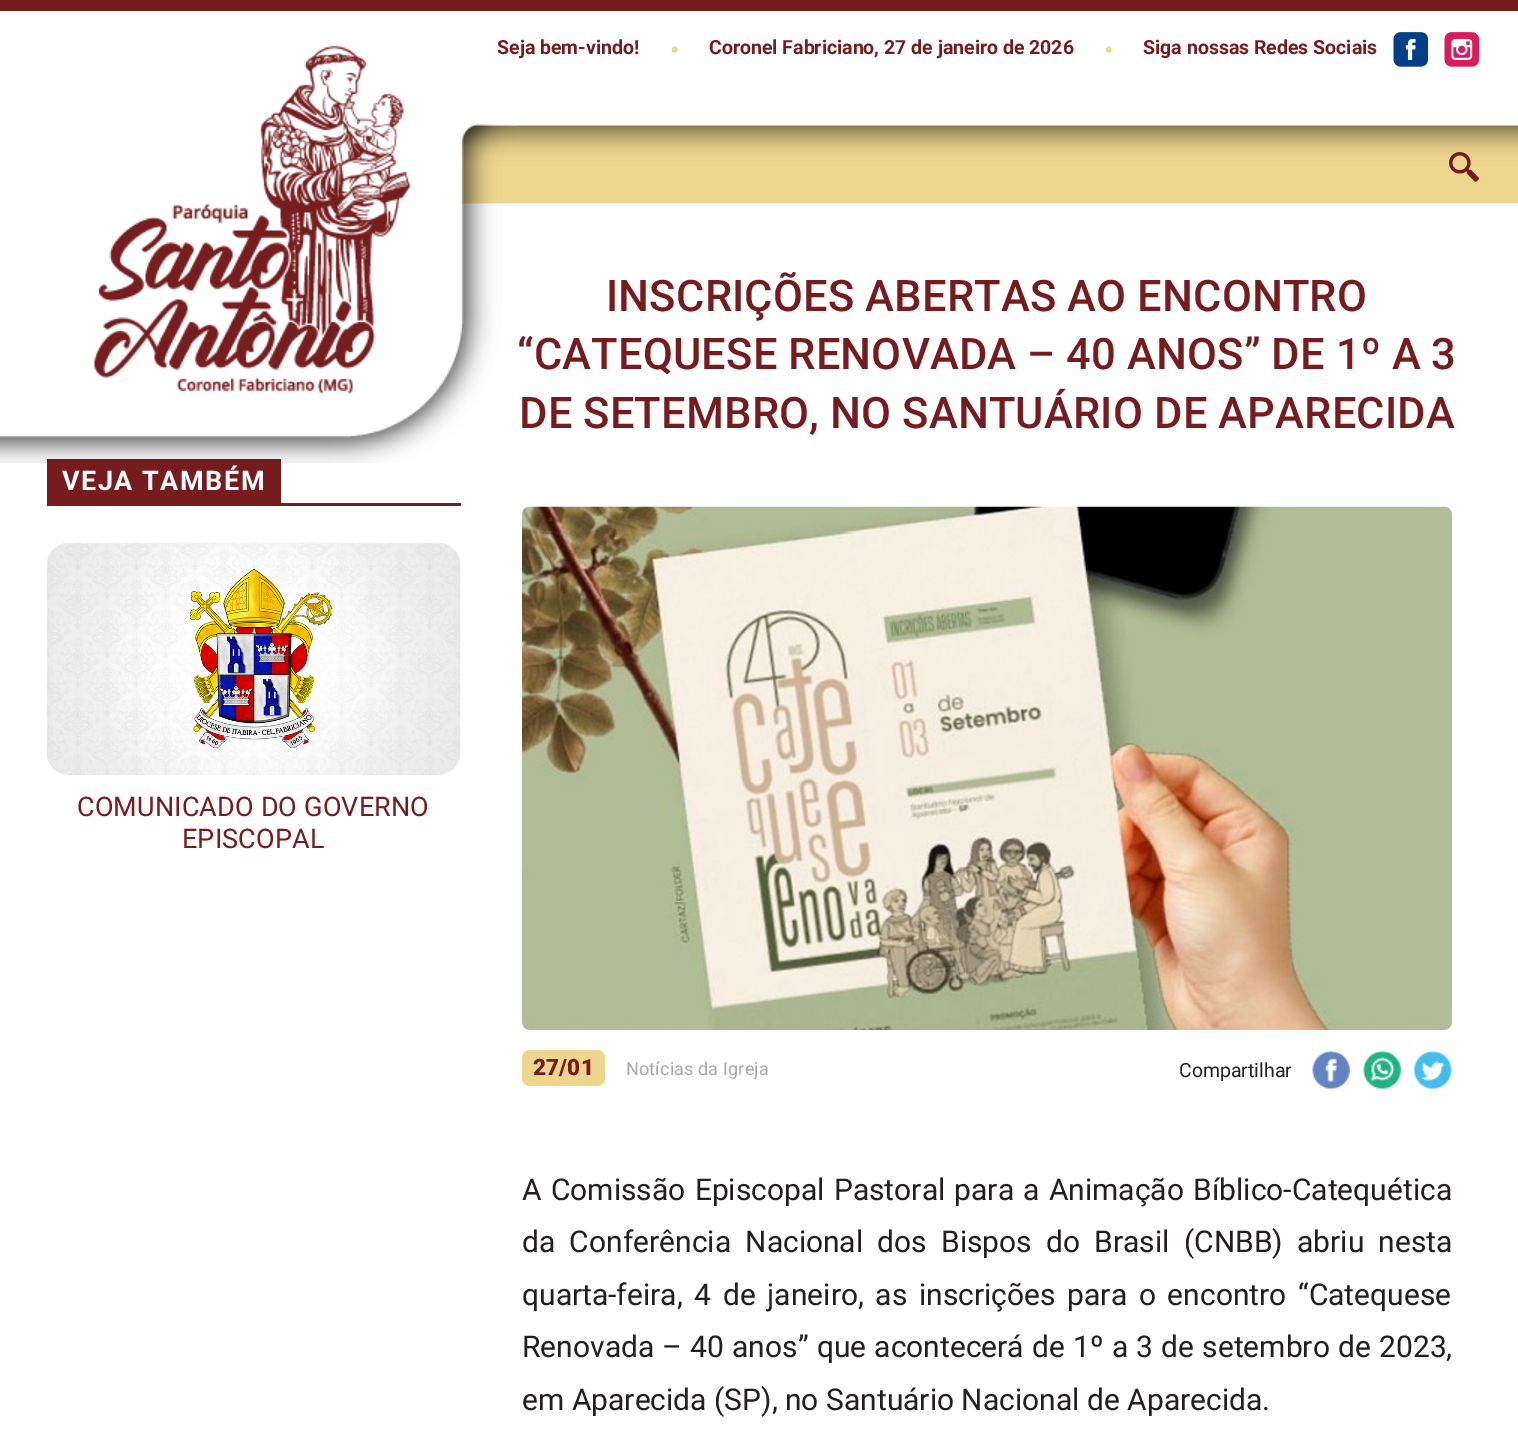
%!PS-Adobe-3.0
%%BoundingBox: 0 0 1518 1431
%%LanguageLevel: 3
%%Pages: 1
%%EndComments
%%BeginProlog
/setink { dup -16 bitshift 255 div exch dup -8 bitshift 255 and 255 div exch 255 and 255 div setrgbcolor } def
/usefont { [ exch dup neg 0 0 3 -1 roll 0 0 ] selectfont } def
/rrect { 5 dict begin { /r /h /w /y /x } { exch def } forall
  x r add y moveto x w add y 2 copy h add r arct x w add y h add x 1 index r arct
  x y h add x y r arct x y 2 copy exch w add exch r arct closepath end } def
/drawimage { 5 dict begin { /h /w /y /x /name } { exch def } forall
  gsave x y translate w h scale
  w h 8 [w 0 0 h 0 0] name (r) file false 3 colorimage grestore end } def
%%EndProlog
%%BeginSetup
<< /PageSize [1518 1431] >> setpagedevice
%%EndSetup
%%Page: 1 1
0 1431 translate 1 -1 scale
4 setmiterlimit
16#FFFFFF setink
0 0 1518 1431 rectfill
16#761C1F setink
0 0 1518 11 rectfill
/Roboto-Bold 19.5 usefont
497 54 moveto (Seja bem-vindo!) show
/Roboto-Bold 26 usefont
16#EED68F setink
670 59 moveto (•) show
/Roboto-Bold 19.5 usefont
16#761C1F setink
709 54 moveto (Coronel Fabriciano, 27 de janeiro de 2026) show
/Roboto-Bold 26 usefont
16#EED68F setink
1104 59 moveto (•) show
/Roboto-Bold 19.5 usefont
16#761C1F setink
1143 54 moveto (Siga nossas Redes Sociais) show
(img1.raw) 1393 32 35 35 drawimage
(img2.raw) 1405 39 11 21 drawimage
(img3.raw) 1444 32 35 35 drawimage
(img4.raw) 1451 38 22 22 drawimage
(img5.raw) 461 125 1057 79 drawimage
47 459 234 44 rectfill
(img7.raw) 0 123 518 340 drawimage
(img6.raw) 94 45 317 350 drawimage
(img8.raw) 1449 152 30 30 drawimage
/Roboto-Bold 27 usefont
16#FFFFFF setink
62 490 moveto 1.5 0 (VEJA TAMBÉM) ashow
16#761C1F setink
47 503 414 3 rectfill
(img9.raw) 46 542 415 233 drawimage
/Roboto-Regular 27 usefont
77 816 moveto 0.15 0 (COMUNICADO DO GOVERNO) ashow
182 848 moveto 0.15 0 (EPISCOPAL) ashow
/Roboto-Medium 43.5 usefont
606 311 moveto 0.15 0 (INSCRIÇÕES ABERTAS AO ENCONTRO) ashow
517 369 moveto 0.15 0 (“CATEQUESE RENOVADA – 40 ANOS” DE 1º A 3) ashow
519 428 moveto 0.15 0 (DE SETEMBRO, NO SANTUÁRIO DE APARECIDA) ashow
(img10.raw) 522 506 930 524 drawimage
16#EED68F setink
522 1050 83 36 8 rrect fill
/Roboto-Black 22.5 usefont
16#761C1F setink
533 1075 moveto 0.15 0 (27/01) ashow
/Roboto-Regular 18 usefont
16#A7A9AB setink
626 1075 moveto 0.15 0 (Notícias da Igreja) ashow
/Roboto-Regular 19.5 usefont
16#231F20 setink
1179 1077 moveto (Compartilhar) show
(img11.raw) 1312 1050 38 39 drawimage
(img12.raw) 1363 1050 38 39 drawimage
(img13.raw) 1414 1050 38 39 drawimage
/Roboto-Regular 30 usefont
522 1200 moveto 1.75 0 32 (A Comissão Episcopal Pastoral para a Animação Bíblico-Catequética) widthshow
522 1252 moveto 6.75 0 32 (da Conferência Nacional dos Bispos do Brasil \(CNBB\) abriu nesta) widthshow
522 1305 moveto 4.25 0 32 (quarta-feira, 4 de janeiro, as inscrições para o encontro “Catequese) widthshow
522 1357 moveto 0.75 0 32 (Renovada – 40 anos” que acontecerá de 1º a 3 de setembro de 2023,) widthshow
522 1410 moveto (em Aparecida \(SP\), no Santuário Nacional de Aparecida.) show
showpage
%%EOF
